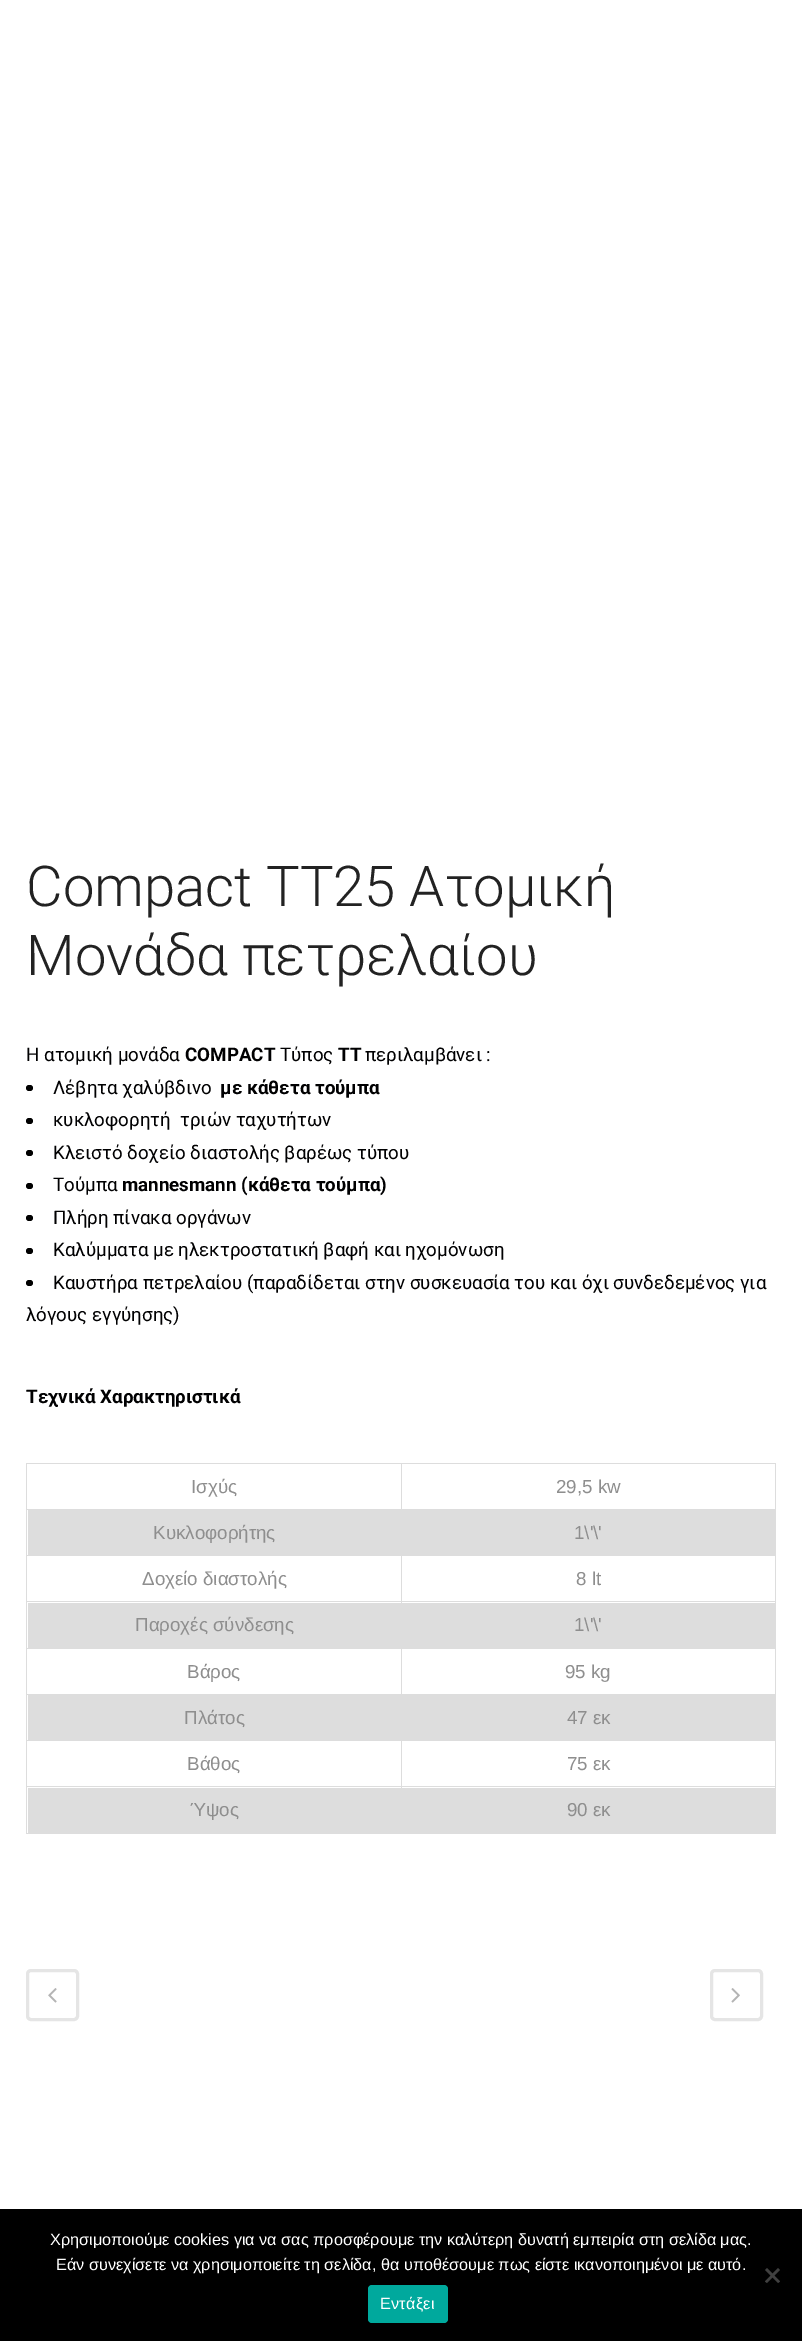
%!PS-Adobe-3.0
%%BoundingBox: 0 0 802 2341
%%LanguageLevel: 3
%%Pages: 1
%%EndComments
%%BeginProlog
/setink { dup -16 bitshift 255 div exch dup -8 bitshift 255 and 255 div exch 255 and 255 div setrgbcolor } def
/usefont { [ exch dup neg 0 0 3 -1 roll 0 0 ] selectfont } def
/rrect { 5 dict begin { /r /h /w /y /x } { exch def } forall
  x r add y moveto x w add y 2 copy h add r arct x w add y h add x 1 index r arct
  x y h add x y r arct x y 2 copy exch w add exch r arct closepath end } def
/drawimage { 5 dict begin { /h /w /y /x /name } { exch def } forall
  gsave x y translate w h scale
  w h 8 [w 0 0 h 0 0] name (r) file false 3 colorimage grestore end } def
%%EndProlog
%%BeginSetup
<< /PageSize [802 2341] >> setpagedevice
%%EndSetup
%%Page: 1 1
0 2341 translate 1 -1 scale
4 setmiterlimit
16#FFFFFF setink
0 0 802 2341 rectfill
/Roboto-Light 56.25 usefont
16#222222 setink
26 906 moveto (Compact TT25 Ατομική) show
26 975 moveto (Μονάδα πετρελαίου) show
/Roboto-Regular 18.75 usefont
16#000001 setink
26 1061 moveto (Η ατομική μονάδα) show
/Roboto-Bold 18.75 usefont
185 1061 moveto (COMPACT) show
/Roboto-Regular 18.75 usefont
280 1061 moveto (Τύπος) show
/Roboto-Bold 18.75 usefont
338 1061 moveto (TT) show
/Roboto-Regular 18.75 usefont
365 1061 moveto (περιλαμβάνει :) show
16#000000 setink
26 1085 7 6 3 rrect fill
16#000001 setink
53 1094 moveto (Λέβητα χαλύβδινο) show
/Roboto-Bold 18.75 usefont
220 1094 moveto (με κάθετα τούμπα) show
16#000000 setink
26 1118 7 6 3 rrect fill
/Roboto-Regular 18.75 usefont
16#000001 setink
53 1126 moveto (κυκλοφορητή  τριών ταχυτήτων) show
16#000000 setink
26 1150 7 6 3 rrect fill
16#000001 setink
53 1159 moveto (Κλειστό δοχείο διαστολής βαρέως τύπου) show
16#000000 setink
26 1183 7 6 3 rrect fill
16#000001 setink
53 1191 moveto (Τούμπα) show
/Roboto-Bold 18.75 usefont
122 1191 moveto (mannesmann \(κάθετα τούμπα\)) show
16#000000 setink
26 1215 7 6 3 rrect fill
/Roboto-Regular 18.75 usefont
16#000001 setink
53 1224 moveto (Πλήρη πίνακα οργάνων) show
16#000000 setink
26 1248 7 6 3 rrect fill
16#000001 setink
53 1256 moveto (Καλύμματα με ηλεκτροστατική βαφή και ηχομόνωση) show
16#000000 setink
26 1280 7 6 3 rrect fill
16#000001 setink
53 1289 moveto (Καυστήρα πετρελαίου \(παραδίδεται στην συσκευασία του και όχι συνδεδεμένος για) show
26 1321 moveto (λόγους εγγύησης\)) show
/Roboto-Bold 18.75 usefont
26 1403 moveto (Τεχνικά Χαρακτηριστικά) show
[
    [401 1463 375 1 16#DDDDDD]
    [26 1509 750 1 16#DDDDDD]
    [401 1463 1 47 16#DDDDDD]
    [26 1463 377 1 16#DDDDDD]
    [26 1555 2 1 16#DDDDDD]
    [401 1601 375 1 16#DDDDDD]
    [401 1601 1 2 16#DDDDDD]
    [26 1601 377 1 16#DDDDDD]
    [26 1648 2 1 16#DDDDDD]
    [26 1694 750 1 16#DDDDDD]
    [26 1740 2 1 16#DDDDDD]
    [401 1786 375 1 16#DDDDDD]
    [401 1786 1 2 16#DDDDDD]
    [26 1786 377 1 16#DDDDDD]
    [26 1833 2 1 16#DDDDDD]
    [26 1786 1 48 16#DDDDDD]
    [26 1740 1 48 16#DDDDDD]
    [26 1694 1 47 16#DDDDDD]
    [26 1648 1 47 16#DDDDDD]
    [26 1601 1 48 16#DDDDDD]
    [26 1555 1 48 16#DDDDDD]
    [26 1509 1 47 16#DDDDDD]
    [26 1463 1 47 16#DDDDDD]
] { aload pop setink rectfill } forall
/LiberationSans-Regular 18.75 usefont
16#8E8E8E setink
191 1493 moveto (Ισχύς) show
16#DDDDDD setink
775 1463 1 47 rectfill
16#8E8E8E setink
556 1493 moveto (29,5 kw) show
16#DDDDDD setink
28 1510 748 46 rectfill
16#8E8E8E setink
[
    [(Κυκλοφορήτης) 153 1539]
    [(1\\'\\') 574 1539]
    [(Δοχείο διαστολής) 142 1585]
] { aload pop moveto show } forall
16#DDDDDD setink
401 1555 1 48 rectfill
16#8E8E8E setink
576 1585 moveto (8 lt) show
16#DDDDDD setink
28 1603 747 46 rectfill
16#8E8E8E setink
135 1631 moveto (Παροχές σύνδεσης) show
16#DDDDDD setink
775 1648 1 47 rectfill
775 1555 1 94 rectfill
16#8E8E8E setink
574 1631 moveto (1\\'\\') show
187 1678 moveto (Βάρος) show
16#DDDDDD setink
401 1648 1 47 rectfill
16#8E8E8E setink
565 1678 moveto (95 kg) show
16#DDDDDD setink
28 1695 748 46 rectfill
16#8E8E8E setink
[
    [(Πλάτος) 184 1724]
    [(47 εκ) 567 1724]
    [(Βάθος) 187 1770]
] { aload pop moveto show } forall
16#DDDDDD setink
401 1740 1 48 rectfill
16#8E8E8E setink
567 1770 moveto (75 εκ) show
16#DDDDDD setink
28 1788 747 46 rectfill
16#8E8E8E setink
190 1816 moveto (Ύψος) show
16#DDDDDD setink
775 1740 1 94 rectfill
16#8E8E8E setink
567 1816 moveto (90 εκ) show
16#E5E5E5 setink
3 setlinewidth
27.5 1970.5 50 49 3.5 rrect stroke
(img1.raw) 48 1988 9 15 drawimage
711.5 1970.5 50 49 3.5 rrect stroke
(img2.raw) 731 1988 9 15 drawimage
16#000000 setink
0 2209 802 132 rectfill
/LiberationSans-Regular 16.25 usefont
16#FFFFFF setink
50 2245 moveto (Χρησιμοποιούμε cookies για να σας προσφέρουμε την καλύτερη δυνατή εμπειρία στη σελίδα μας.) show
56 2270 moveto (Εάν συνεχίσετε να χρησιμοποιείτε τη σελίδα, θα υποθέσουμε πως είστε ικανοποιημένοι με αυτό.) show
16#404040 setink
778 2268 moveto 780 2270 lineto 767 2283 lineto 765 2281.5 lineto closepath fill
765 2270 moveto 767 2268 lineto 780 2281.5 lineto 778 2283 lineto closepath fill
16#00A99D setink
368 2285 80 38 4 rrect fill
16#FFFFFF setink
380 2309 moveto 0.25 0 (Εντάξει) ashow
showpage
%%EOF
